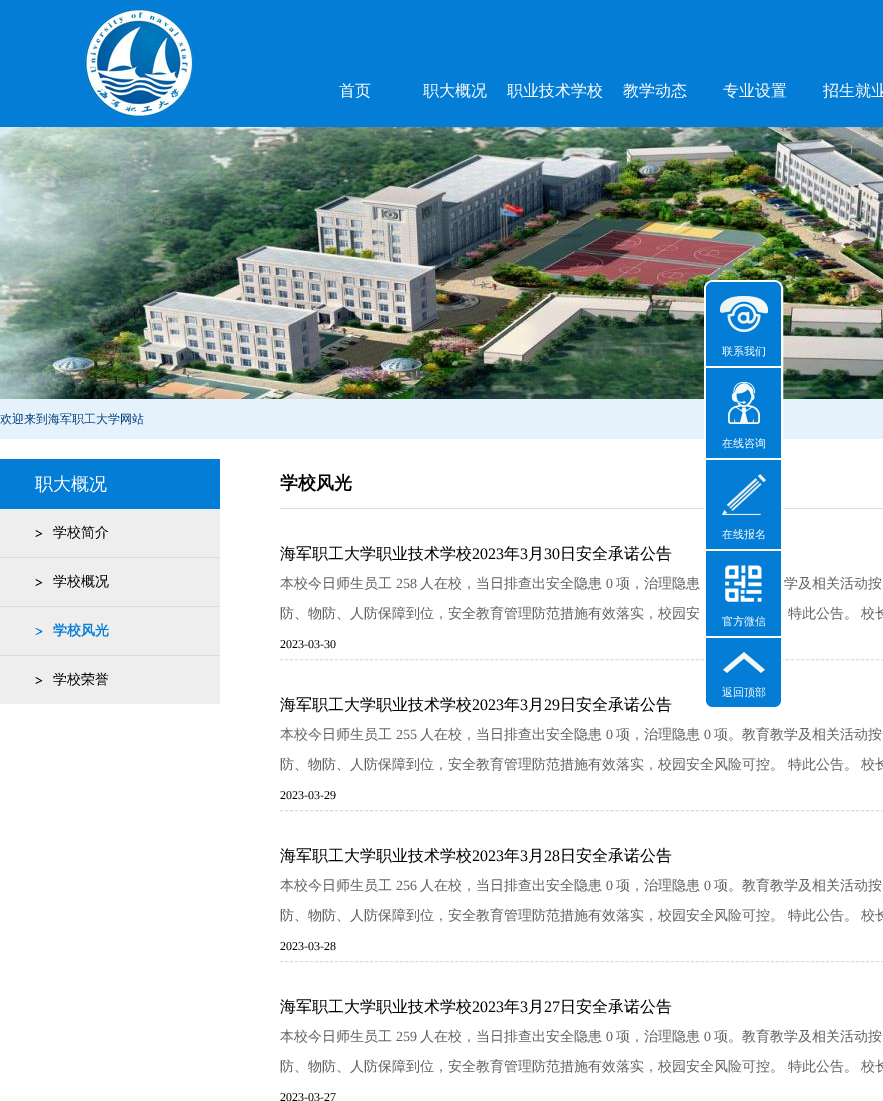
%!PS-Adobe-3.0
%%BoundingBox: 0 0 883 1101
%%LanguageLevel: 3
%%Pages: 1
%%EndComments
%%BeginProlog
/setink { dup -16 bitshift 255 div exch dup -8 bitshift 255 and 255 div exch 255 and 255 div setrgbcolor } def
/usefont { [ exch dup neg 0 0 3 -1 roll 0 0 ] selectfont } def
/rrect { 5 dict begin { /r /h /w /y /x } { exch def } forall
  x r add y moveto x w add y 2 copy h add r arct x w add y h add x 1 index r arct
  x y h add x y r arct x y 2 copy exch w add exch r arct closepath end } def
/drawimage { 5 dict begin { /h /w /y /x /name } { exch def } forall
  gsave x y translate w h scale
  w h 8 [w 0 0 h 0 0] name (r) file false 3 colorimage grestore end } def
%%EndProlog
%%BeginSetup
<< /PageSize [883 1101] >> setpagedevice
%%EndSetup
%%Page: 1 1
0 1101 translate 1 -1 scale
4 setmiterlimit
16#FFFFFF setink
0 0 883 1101 rectfill
16#037DD6 setink
0 0 883 127 rectfill
(img1.raw) 80 8 118 111 drawimage
/WenQuanYiZenHei-Medium 16 usefont
16#FFFFFF setink
[
    [(首页) 339 96]
    [(职大概况) 423 96]
    [(职业技术学校) 507 96]
    [(教学动态) 623 96]
    [(专业设置) 723 96]
    [(招生就业) 823 96]
] { aload pop moveto show } forall
(img2.raw) 0 127 883 272 drawimage
16#E5F2FB setink
0 399 883 40 rectfill
/WenQuanYiZenHei-Medium 12 usefont
16#033F80 setink
0 423 moveto (欢迎来到海军职工大学网站) show
16#037DD6 setink
0 459 220 50 rectfill
/WenQuanYiZenHei-Medium 18 usefont
16#FFFFFF setink
35 490 moveto (职大概况) show
16#EEEEEE setink
0 509 220 48 rectfill
16#DCDCDC setink
0 557 220 1 rectfill
(img3.raw) 35 530 8 7 drawimage
/WenQuanYiZenHei-Medium 14 usefont
16#000000 setink
53 537 moveto (学校简介) show
16#EEEEEE setink
0 558 220 48 rectfill
16#DCDCDC setink
0 606 220 1 rectfill
(img3.raw) 35 579 8 7 drawimage
16#000000 setink
53 586 moveto (学校概况) show
16#EEEEEE setink
0 607 220 48 rectfill
16#DCDCDC setink
0 655 220 1 rectfill
(img4.raw) 35 628 8 7 drawimage
/WenQuanYiZenHei-Bold 14 usefont
16#037DD6 setink
53 635 moveto (学校风光) show
16#EEEEEE setink
0 656 220 48 rectfill
(img3.raw) 35 677 8 7 drawimage
/WenQuanYiZenHei-Medium 14 usefont
16#000000 setink
53 684 moveto (学校荣誉) show
16#DCDCDC setink
280 508 603 1 rectfill
/WenQuanYiZenHei-Bold 18 usefont
16#000000 setink
280 489 moveto (学校风光) show
16#DCDCDC setink
[3 2.01] 0 setdash
280 659.5 moveto 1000 659.5 lineto stroke
/WenQuanYiZenHei-Medium 16 usefont
16#000000 setink
280 559 moveto (海军职工大学职业技术学校) show
/LiberationSerif-Regular 16 usefont
472 559 moveto (2023) show
/WenQuanYiZenHei-Medium 16 usefont
504 559 moveto (年) show
/LiberationSerif-Regular 16 usefont
520 559 moveto (3) show
/WenQuanYiZenHei-Medium 16 usefont
528 559 moveto (月) show
/LiberationSerif-Regular 16 usefont
544 559 moveto (30) show
/WenQuanYiZenHei-Medium 16 usefont
560 559 moveto (日安全承诺公告) show
/WenQuanYiZenHei-Medium 14 usefont
16#606060 setink
280 588 moveto (本校今日师生员工) show
/LiberationSerif-Regular 14 usefont
396 588 moveto (258) show
/WenQuanYiZenHei-Medium 14 usefont
420 588 moveto (人在校，当日排查出安全隐患) show
/LiberationSerif-Regular 14 usefont
606 588 moveto (0) show
/WenQuanYiZenHei-Medium 14 usefont
[
    [(项，治理隐患) 616 588]
    [(学及相关活动按) 784 588]
    [(防、物防、人防保障到位，安全教育管理防范措施有效落实，校园安) 280 618]
    [(特此公告。) 788 618]
    [(校长) 861 618]
] { aload pop moveto show } forall
/LiberationSerif-Regular 12 usefont
16#000000 setink
280 648 moveto (2023-03-30) show
16#DCDCDC setink
280 810.5 moveto 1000 810.5 lineto stroke
/WenQuanYiZenHei-Medium 16 usefont
16#000000 setink
280 710 moveto (海军职工大学职业技术学校) show
/LiberationSerif-Regular 16 usefont
472 710 moveto (2023) show
/WenQuanYiZenHei-Medium 16 usefont
504 710 moveto (年) show
/LiberationSerif-Regular 16 usefont
520 710 moveto (3) show
/WenQuanYiZenHei-Medium 16 usefont
528 710 moveto (月) show
/LiberationSerif-Regular 16 usefont
544 710 moveto (29) show
/WenQuanYiZenHei-Medium 16 usefont
560 710 moveto (日安全承诺公告) show
/WenQuanYiZenHei-Medium 14 usefont
16#606060 setink
280 739 moveto (本校今日师生员工) show
/LiberationSerif-Regular 14 usefont
396 739 moveto (255) show
/WenQuanYiZenHei-Medium 14 usefont
420 739 moveto (人在校，当日排查出安全隐患) show
/LiberationSerif-Regular 14 usefont
606 739 moveto (0) show
/WenQuanYiZenHei-Medium 14 usefont
616 739 moveto (项，治理隐患) show
/LiberationSerif-Regular 14 usefont
704 739 moveto (0) show
/WenQuanYiZenHei-Medium 14 usefont
[
    [(项。教育教学及相关活动按) 714 739]
    [(防、物防、人防保障到位，安全教育管理防范措施有效落实，校园安全风险可控。) 280 769]
    [(特此公告。) 788 769]
    [(校长) 861 769]
] { aload pop moveto show } forall
/LiberationSerif-Regular 12 usefont
16#000000 setink
280 799 moveto (2023-03-29) show
16#DCDCDC setink
280 961.5 moveto 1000 961.5 lineto stroke
/WenQuanYiZenHei-Medium 16 usefont
16#000000 setink
280 861 moveto (海军职工大学职业技术学校) show
/LiberationSerif-Regular 16 usefont
472 861 moveto (2023) show
/WenQuanYiZenHei-Medium 16 usefont
504 861 moveto (年) show
/LiberationSerif-Regular 16 usefont
520 861 moveto (3) show
/WenQuanYiZenHei-Medium 16 usefont
528 861 moveto (月) show
/LiberationSerif-Regular 16 usefont
544 861 moveto (28) show
/WenQuanYiZenHei-Medium 16 usefont
560 861 moveto (日安全承诺公告) show
/WenQuanYiZenHei-Medium 14 usefont
16#606060 setink
280 890 moveto (本校今日师生员工) show
/LiberationSerif-Regular 14 usefont
396 890 moveto (256) show
/WenQuanYiZenHei-Medium 14 usefont
420 890 moveto (人在校，当日排查出安全隐患) show
/LiberationSerif-Regular 14 usefont
606 890 moveto (0) show
/WenQuanYiZenHei-Medium 14 usefont
616 890 moveto (项，治理隐患) show
/LiberationSerif-Regular 14 usefont
704 890 moveto (0) show
/WenQuanYiZenHei-Medium 14 usefont
[
    [(项。教育教学及相关活动按) 714 890]
    [(防、物防、人防保障到位，安全教育管理防范措施有效落实，校园安全风险可控。) 280 920]
    [(特此公告。) 788 920]
    [(校长) 861 920]
] { aload pop moveto show } forall
/LiberationSerif-Regular 12 usefont
16#000000 setink
280 950 moveto (2023-03-28) show
/WenQuanYiZenHei-Medium 16 usefont
280 1012 moveto (海军职工大学职业技术学校) show
/LiberationSerif-Regular 16 usefont
472 1012 moveto (2023) show
/WenQuanYiZenHei-Medium 16 usefont
504 1012 moveto (年) show
/LiberationSerif-Regular 16 usefont
520 1012 moveto (3) show
/WenQuanYiZenHei-Medium 16 usefont
528 1012 moveto (月) show
/LiberationSerif-Regular 16 usefont
544 1012 moveto (27) show
/WenQuanYiZenHei-Medium 16 usefont
560 1012 moveto (日安全承诺公告) show
/WenQuanYiZenHei-Medium 14 usefont
16#606060 setink
280 1041 moveto (本校今日师生员工) show
/LiberationSerif-Regular 14 usefont
396 1041 moveto (259) show
/WenQuanYiZenHei-Medium 14 usefont
420 1041 moveto (人在校，当日排查出安全隐患) show
/LiberationSerif-Regular 14 usefont
606 1041 moveto (0) show
/WenQuanYiZenHei-Medium 14 usefont
616 1041 moveto (项，治理隐患) show
/LiberationSerif-Regular 14 usefont
704 1041 moveto (0) show
/WenQuanYiZenHei-Medium 14 usefont
[
    [(项。教育教学及相关活动按) 714 1041]
    [(防、物防、人防保障到位，安全教育管理防范措施有效落实，校园安全风险可控。) 280 1071]
    [(特此公告。) 788 1071]
    [(校长) 861 1071]
] { aload pop moveto show } forall
/LiberationSerif-Regular 12 usefont
16#000000 setink
280 1101 moveto (2023-03-27) show
16#FFFFFF setink
2 setlinewidth
[] 0 setdash
705 281 77 427 8 rrect stroke
16#037DD6 setink
713 282 moveto 774 282 lineto 778 282 781 285 781 289 curveto 781 368 lineto 706 368 lineto 706 289 lineto 706 285 709 282 713 282 curveto closepath fill
16#FFFFFF setink
706 366 75 2 rectfill
(img5.raw) 720 296 48 36 drawimage
/WenQuanYiZenHei-Medium 11 usefont
722 355 moveto (联系我们) show
16#037DD6 setink
706 368 75 90 rectfill
(img6.raw) 728 382 32 42 drawimage
16#FFFFFF setink
722 447 moveto (在线咨询) show
16#037DD6 setink
706 460 75 89 rectfill
(img7.raw) 722 474 44 41 drawimage
16#FFFFFF setink
722 538 moveto (在线报名) show
16#037DD6 setink
706 551 75 85 rectfill
(img8.raw) 725 565 37 37 drawimage
16#FFFFFF setink
722 625 moveto (官方微信) show
16#037DD6 setink
706 638 moveto 781 638 lineto 781 700 lineto 781 704 778 707 774 707 curveto 713 707 lineto 709 707 706 704 706 700 curveto closepath fill
(img9.raw) 723 652 42 21 drawimage
16#FFFFFF setink
722 696 moveto (返回顶部) show
showpage
%%EOF
